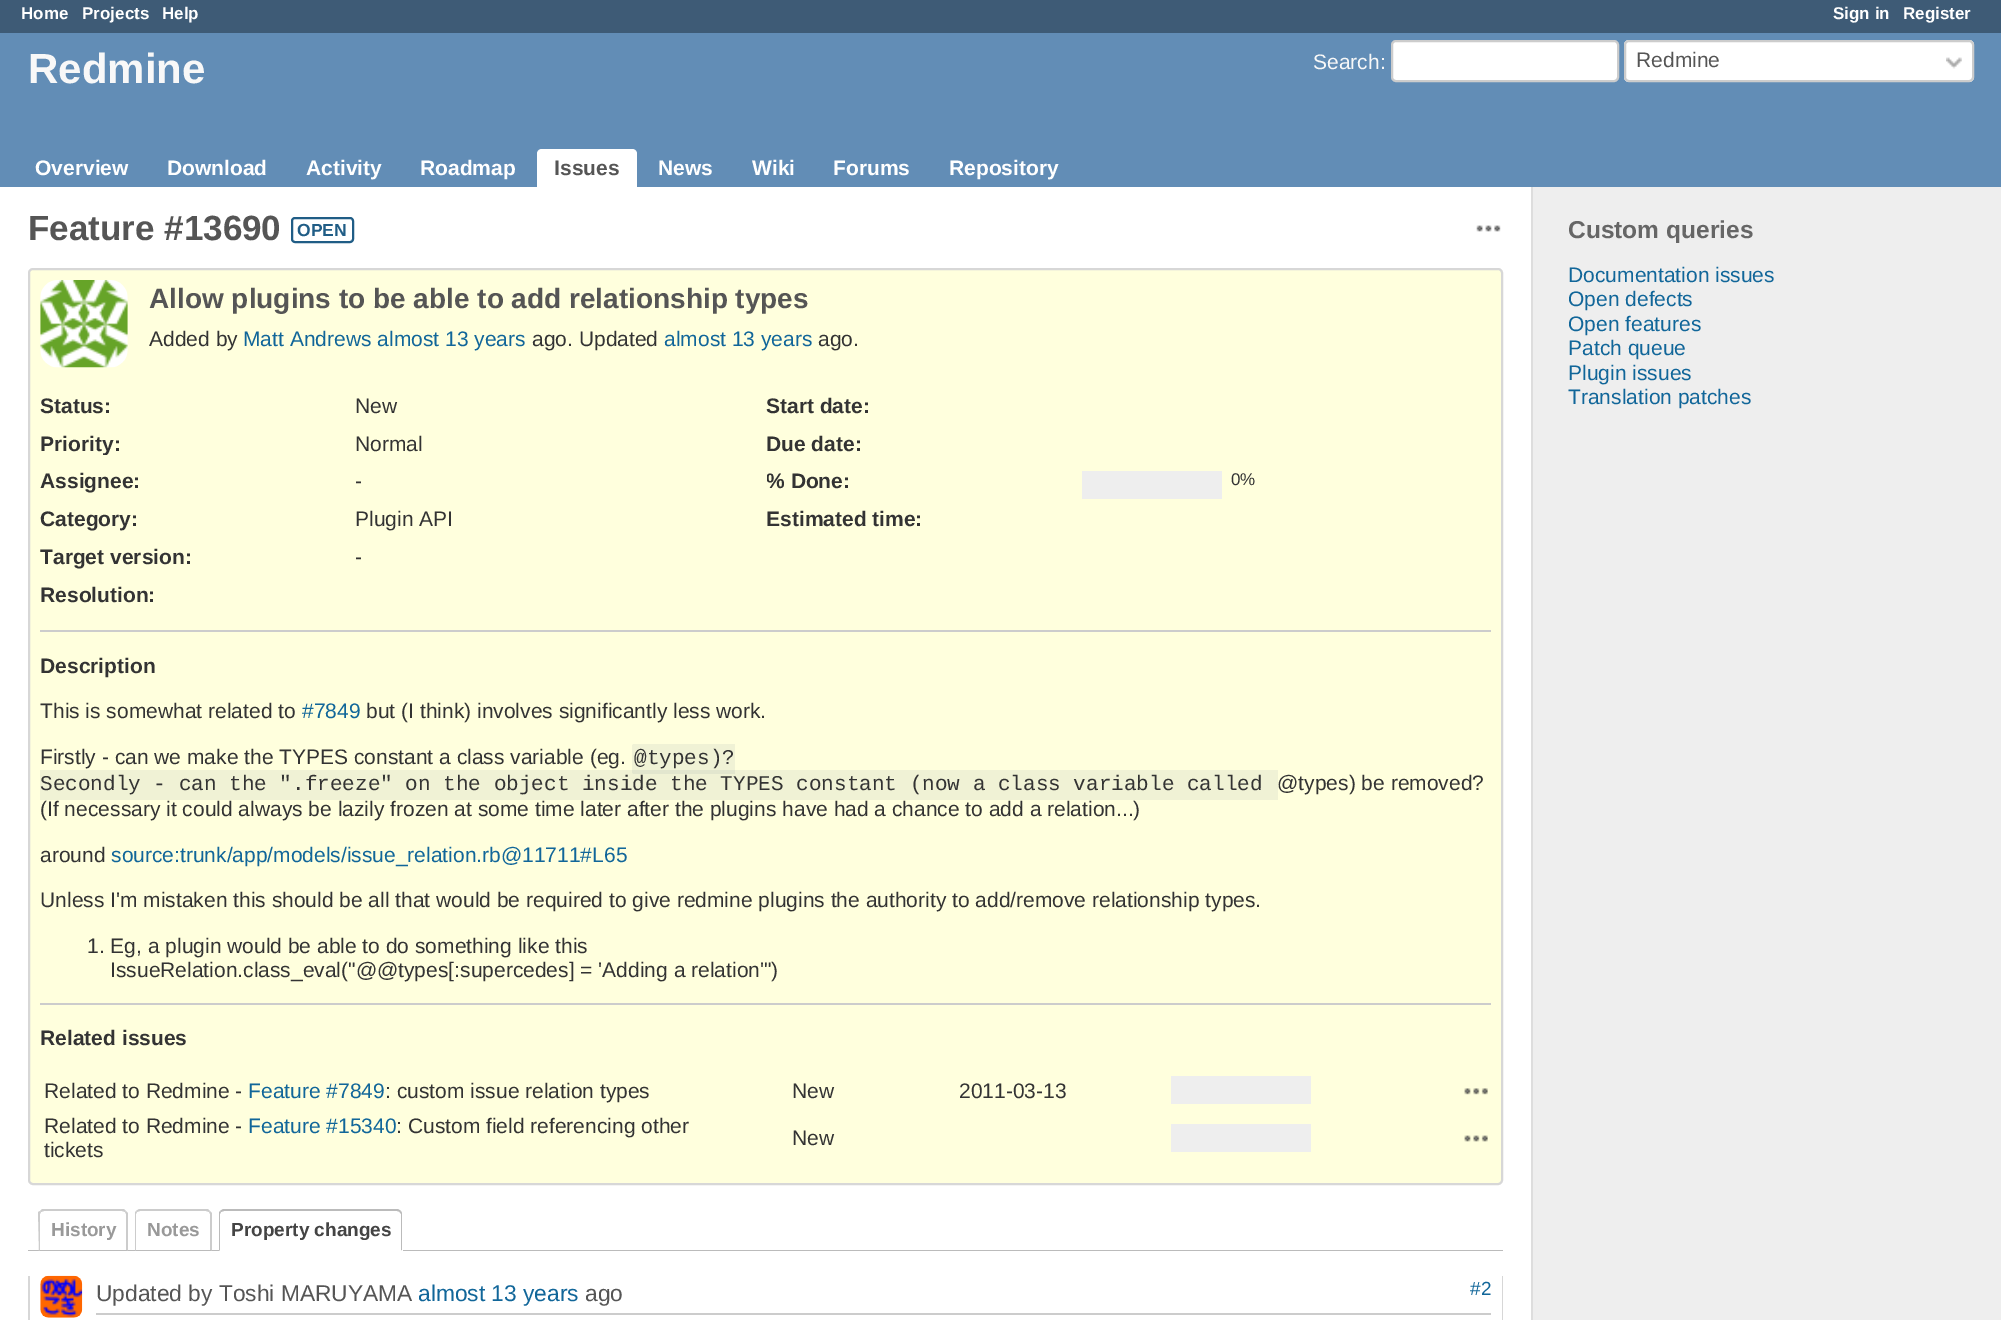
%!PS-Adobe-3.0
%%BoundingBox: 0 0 2001 1320
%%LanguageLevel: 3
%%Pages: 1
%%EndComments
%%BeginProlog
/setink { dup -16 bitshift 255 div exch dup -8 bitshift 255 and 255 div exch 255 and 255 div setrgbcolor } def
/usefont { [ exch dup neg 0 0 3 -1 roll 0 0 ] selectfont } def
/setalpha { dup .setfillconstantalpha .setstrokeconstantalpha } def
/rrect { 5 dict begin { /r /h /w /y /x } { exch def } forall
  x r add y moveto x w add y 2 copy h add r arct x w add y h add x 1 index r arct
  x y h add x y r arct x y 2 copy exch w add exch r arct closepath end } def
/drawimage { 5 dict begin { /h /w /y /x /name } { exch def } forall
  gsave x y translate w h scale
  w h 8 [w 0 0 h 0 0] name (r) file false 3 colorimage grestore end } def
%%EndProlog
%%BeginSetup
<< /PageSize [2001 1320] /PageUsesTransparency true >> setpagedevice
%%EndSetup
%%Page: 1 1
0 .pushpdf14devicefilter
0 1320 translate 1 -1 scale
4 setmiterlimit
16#FFFFFF setink
0 0 2001 1320 rectfill
16#3E5B76 setink
0 0 2001 33 rectfill
/LiberationSans-Bold 17 usefont
16#FFFFFF setink
[
    [(Home) 21 19]
    [(Projects) 82 19]
    [(Help) 162 19]
    [(Sign in) 1833 19]
    [(Register) 1903 19]
] { aload pop moveto show } forall
16#628DB6 setink
0 33 2001 154 rectfill
/LiberationSans-Bold 42 usefont
16#F8F8F8 setink
28 83 moveto (Redmine) show
/LiberationSans-Regular 21 usefont
1313 69 moveto (Search:) show
16#FFFFFF setink
1392 41 226 40 4 rrect gsave fill grestore
16#CCCCCC setink
2 setlinewidth
stroke
16#FFFFFF setink
1624 40 350 42 5 rrect fill
(img1.raw) 1946 57 16 12 drawimage
16#CCCCCC setink
1625 41 348 40 4 rrect stroke
16#555555 setink
1636 67 moveto (Redmine) show
/LiberationSans-Bold 21 usefont
16#FFFFFF setink
[
    [(Overview) 35 175]
    [(Download) 167 175]
    [(Activity) 306 175]
    [(Roadmap) 420 175]
] { aload pop moveto show } forall
542 149 moveto 632 149 lineto 635 149 637 151 637 154 curveto 637 187 lineto 537 187 lineto 537 154 lineto 537 151 539 149 542 149 curveto closepath fill
16#555555 setink
554 175 moveto (Issues) show
16#FFFFFF setink
[
    [(News) 658 175]
    [(Wiki) 752 175]
    [(Forums) 833 175]
    [(Repository) 949 175]
] { aload pop moveto show } forall
/LiberationSans-Bold 35 usefont
16#555555 setink
28 240 moveto (Feature #13690) show
16#205D86 setink
292 218 61 24 3 rrect stroke
/LiberationSans-Bold 17.5 usefont
297 236 moveto (OPEN) show
(img2.raw) 1476 225 25 7 drawimage
16#FFFFDD setink
29 269 1473 915 4 rrect gsave fill grestore
16#D7D7D7 setink
stroke
(img3.raw) 40 280 88 88 drawimage
/LiberationSans-Bold 28 usefont
16#555555 setink
149 308 moveto (Allow plugins to be able to add relationship types) show
/LiberationSans-Regular 21 usefont
16#333333 setink
149 346 moveto (Added by) show
16#116699 setink
243 346 moveto (Matt Andrews almost 13 years) show
16#333333 setink
532 346 moveto (ago. Updated) show
16#116699 setink
664 346 moveto (almost 13 years) show
16#333333 setink
818 346 moveto (ago.) show
/LiberationSans-Bold 21 usefont
40 413 moveto (Status:) show
/LiberationSans-Regular 21 usefont
355 413 moveto (New) show
gsave
40 431 298 24 rectclip
/LiberationSans-Bold 21 usefont
40 451 moveto (Priority:) show
grestore
355 451 moveto (Normal) show
/LiberationSans-Bold 21 usefont
40 488 moveto (Assignee:) show
/LiberationSans-Regular 21 usefont
355 488 moveto (-) show
/LiberationSans-Bold 21 usefont
40 526 moveto (Category:) show
/LiberationSans-Regular 21 usefont
355 526 moveto (Plugin API) show
/LiberationSans-Bold 21 usefont
40 564 moveto (Target version:) show
/LiberationSans-Regular 21 usefont
355 564 moveto (-) show
/LiberationSans-Bold 21 usefont
766 413 moveto (Start date:) show
766 451 moveto (Due date:) show
gsave
767 469 297 25 rectclip
766 488 moveto (% Done:) show
grestore
16#EEEEEE setink
1082 471 140 28 rectfill
/LiberationSans-Regular 17 usefont
16#333333 setink
1231 485 moveto (0%) show
/LiberationSans-Bold 21 usefont
766 526 moveto (Estimated time:) show
40 602 moveto (Resolution:) show
16#CCCCCC setink
40 630 1451 2 rectfill
16#333333 setink
40 673 moveto (Description) show
/LiberationSans-Regular 21 usefont
40 718 moveto (This is somewhat related to) show
16#116699 setink
302 718 moveto (#7849) show
16#333333 setink
366 718 moveto (but \(I think\) involves significantly less work.) show
40 764 moveto (Firstly - can we make the TYPES constant a class variable \(eg.) show
16#F0F2D5 setink
634 744 moveto 735 744 lineto 735 774 lineto 634 774 lineto 633 774 632 773 632 772 curveto 632 746 lineto 632 745 633 744 634 744 curveto closepath fill
/LiberationMono-Regular 21 usefont
16#333333 setink
634 764 moveto (@types\)?) show
0.08 setalpha
16#3E5B76 setink
40 770 1238 30 rectfill
1 setalpha
16#333333 setink
40 790 moveto (Secondly - can the ".freeze" on the object inside the TYPES constant \(now a class variable called) show
/LiberationSans-Regular 21 usefont
[
    [(@types\) be removed?) 1277 790]
    [(\(If necessary it could always be lazily frozen at some time later after the plugins have had a chance to add a relation...\)) 40 816]
    [(around) 40 862]
] { aload pop moveto show } forall
16#116699 setink
111 862 moveto (source:trunk/app/models/issue_relation.rb@11711#L65) show
16#333333 setink
[
    [(Unless I'm mistaken this should be all that would be required to give redmine plugins the authority to add/remove relationship types.) 40 907]
    [(1. Eg, a plugin would be able to do something like this) 87 953]
    [(IssueRelation.class_eval\("@@types[:supercedes] = 'Adding a relation'"\)) 110 977]
] { aload pop moveto show } forall
16#CCCCCC setink
40 1003 1451 2 rectfill
/LiberationSans-Bold 21 usefont
16#333333 setink
40 1045 moveto (Related issues) show
/LiberationSans-Regular 21 usefont
44 1098 moveto (Related to Redmine -) show
16#116699 setink
248 1098 moveto (Feature #7849) show
16#333333 setink
[
    [(: custom issue relation types) 385 1098]
    [(New) 792 1098]
    [(2011-03-13) 959 1098]
] { aload pop moveto show } forall
16#EEEEEE setink
1171 1076 140 28 rectfill
(img4.raw) 1464 1088 24 7 drawimage
16#333333 setink
44 1133 moveto (Related to Redmine -) show
16#116699 setink
248 1133 moveto (Feature #15340) show
16#333333 setink
[
    [(: Custom field referencing other) 396 1133]
    [(tickets) 44 1157]
    [(New) 792 1145]
] { aload pop moveto show } forall
16#EEEEEE setink
1171 1124 140 28 rectfill
(img5.raw) 1464 1135 24 7 drawimage
16#BBBBBB setink
28 1250 1475 1 rectfill
16#CCCCCC setink
44 1211 moveto 41 1212 lineto 40 1211 lineto 42 1209 lineto 124 1209 lineto 126 1211 lineto 125 1212 lineto 122 1211 lineto closepath fill
128 1251 moveto 126 1250 lineto 126 1214 lineto 125 1212 lineto 126 1211 lineto 128 1213 lineto closepath fill
16#BBBBBB setink
128 1251 moveto 39 1251 lineto 40 1250 lineto 126 1250 lineto closepath fill
16#CCCCCC setink
38 1212 moveto 40 1211 lineto 41 1212 lineto 40 1214 lineto 40 1250 lineto 39 1251 lineto closepath fill
/LiberationSans-Bold 19 usefont
16#999999 setink
51 1236 moveto (History) show
16#CCCCCC setink
140 1211 moveto 137 1212 lineto 136 1211 lineto 139 1209 lineto 208 1209 lineto 210 1211 lineto 209 1212 lineto 206 1211 lineto closepath fill
212 1251 moveto 210 1250 lineto 210 1214 lineto 209 1212 lineto 210 1211 lineto 212 1213 lineto closepath fill
16#BBBBBB setink
212 1251 moveto 135 1251 lineto 136 1250 lineto 210 1250 lineto closepath fill
16#CCCCCC setink
135 1251 moveto 136 1250 lineto 136 1214 lineto 137 1212 lineto 136 1211 lineto 135 1212 135 1213 135 1214 curveto closepath fill
16#999999 setink
147 1236 moveto (Notes) show
16#FFFFFF setink
224 1209 moveto 398 1209 lineto 401 1209 403 1211 403 1214 curveto 403 1251 lineto 219 1251 lineto 219 1214 lineto 219 1211 221 1209 224 1209 curveto closepath fill
16#BBBBBB setink
224 1211 moveto 221 1212 lineto 220 1211 lineto 223 1209 lineto 398 1209 lineto 401 1211 lineto 400 1212 lineto 397 1211 lineto closepath fill
401 1211 moveto 401.5 1212 402 1213 402 1214 curveto 402 1251 lineto 401 1250 lineto 401 1214 lineto 399.5 1212 lineto closepath fill
16#FFFFFF setink
402 1251 moveto 219 1251 lineto 220 1250 lineto 401 1250 lineto closepath fill
16#BBBBBB setink
219 1251 moveto 220 1250 lineto 220 1214 lineto 221 1212 lineto 220 1211 lineto 219 1212 219 1213 219 1214 curveto closepath fill
16#444444 setink
231 1236 moveto (Property changes) show
16#D7D7D7 setink
28 1276 moveto 1503 1276 lineto 1503 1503 lineto 1503 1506 1501 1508 1498 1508 curveto 33 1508 lineto 30 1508 28 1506 28 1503 curveto closepath 30 1276 moveto 1502 1276 lineto 1502 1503 lineto 1502 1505 1500 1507 1498 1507 curveto 33 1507 lineto 31 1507 30 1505 30 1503 curveto closepath eofill
16#CCCCCC setink
96 1313 1395 2 rectfill
(img6.raw) 40 1275 43 43 drawimage
/LiberationSans-Regular 22.75 usefont
16#555555 setink
96 1301 moveto (Updated by Toshi MARUYAMA) show
16#116699 setink
418 1301 moveto (almost 13 years) show
16#555555 setink
585 1301 moveto (ago) show
/LiberationSans-Regular 19 usefont
16#116699 setink
1470 1295 moveto (#2) show
16#EEEEEE setink
1533 187 468 1133 rectfill
16#DDDDDD setink
1531 187 2 1133 rectfill
/LiberationSans-Bold 24.5 usefont
16#666666 setink
1568 238 moveto (Custom queries) show
/LiberationSans-Regular 21 usefont
16#116699 setink
[
    [(Documentation issues) 1568 282]
    [(Open defects) 1568 306]
    [(Open features) 1568 331]
    [(Patch queue) 1568 355]
    [(Plugin issues) 1568 380]
    [(Translation patches) 1568 404]
] { aload pop moveto show } forall
.poppdf14devicefilter showpage
%%EOF
